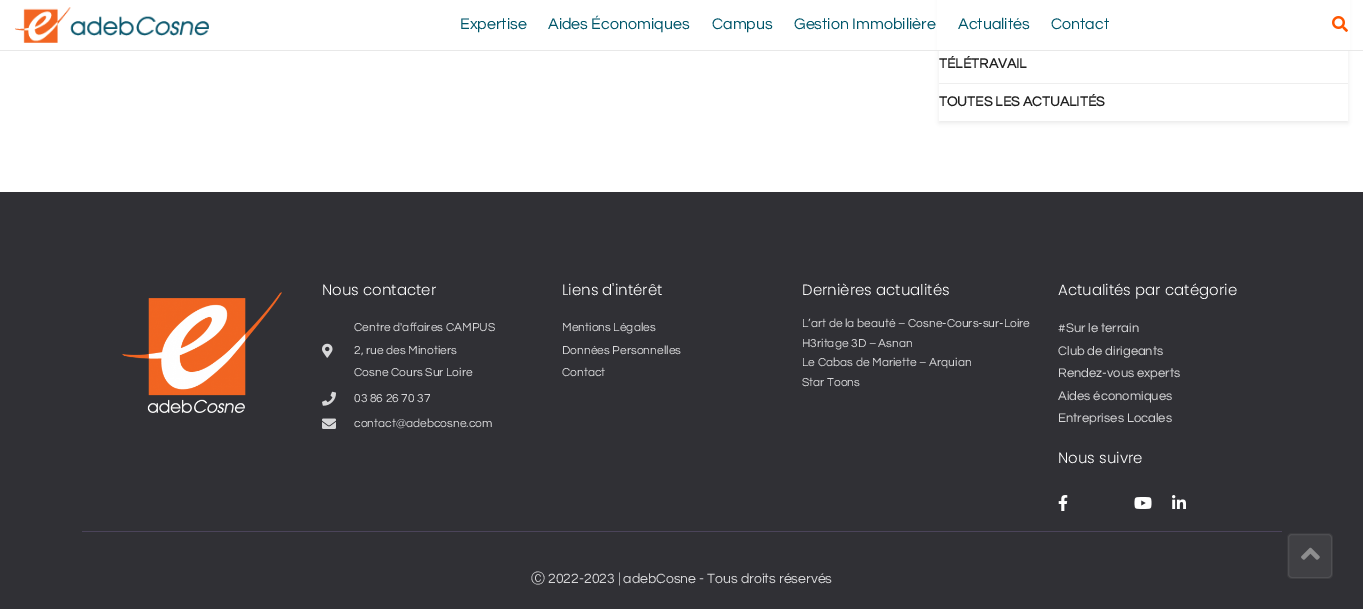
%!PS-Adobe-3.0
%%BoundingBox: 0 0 1363 609
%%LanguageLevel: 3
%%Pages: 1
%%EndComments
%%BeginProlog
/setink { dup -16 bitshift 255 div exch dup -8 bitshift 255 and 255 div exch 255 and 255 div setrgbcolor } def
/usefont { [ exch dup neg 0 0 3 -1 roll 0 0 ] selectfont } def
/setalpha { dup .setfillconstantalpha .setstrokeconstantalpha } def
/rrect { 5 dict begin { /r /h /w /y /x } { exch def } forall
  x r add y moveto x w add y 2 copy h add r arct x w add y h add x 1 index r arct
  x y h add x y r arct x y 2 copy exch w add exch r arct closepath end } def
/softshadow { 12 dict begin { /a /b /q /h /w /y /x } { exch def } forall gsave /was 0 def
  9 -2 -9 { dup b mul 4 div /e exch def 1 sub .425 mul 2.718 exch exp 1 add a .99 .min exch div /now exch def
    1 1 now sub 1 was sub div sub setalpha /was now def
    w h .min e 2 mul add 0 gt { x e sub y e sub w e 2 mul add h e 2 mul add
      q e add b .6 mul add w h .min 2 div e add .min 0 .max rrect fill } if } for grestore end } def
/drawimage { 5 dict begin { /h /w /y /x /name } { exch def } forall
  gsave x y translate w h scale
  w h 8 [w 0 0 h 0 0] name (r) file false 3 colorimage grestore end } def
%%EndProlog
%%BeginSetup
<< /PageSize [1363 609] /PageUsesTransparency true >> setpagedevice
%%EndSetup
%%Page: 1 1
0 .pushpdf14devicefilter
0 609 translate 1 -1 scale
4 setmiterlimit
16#FFFFFF setink
0 0 1363 609 rectfill
gsave
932 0 moveto 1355 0 lineto 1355 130 lineto 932 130 lineto closepath 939 -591 moveto 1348 -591 lineto 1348 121 lineto 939 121 lineto closepath eoclip newpath
16#000000 setink
939 -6 409 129 0 2 0.08 softshadow
grestore
937 0 413 50 rectfill
16#E8E8E8 setink
0 50 1363 1 rectfill
(img1.raw) 15 7 194 36 drawimage
/Questrial-Regular 16 usefont
16#00566A setink
[
    [(Expertise) 460 29]
    [(Aides Économiques) 548 29]
    [(Campus) 712 29]
    [(Gestion Immobilière) 794 29]
    [(Actualités) 958 29]
    [(Contact) 1051 29]
] { aload pop moveto show } forall
(img2.raw) 1332 16 16 16 drawimage
/Questrial-Bold 14 usefont
16#212121 setink
939 68 moveto (TÉLÉTRAVAIL) show
16#EEEEEE setink
939 83 409 1 rectfill
16#212121 setink
939 106 moveto (TOUTES LES ACTUALITÉS) show
16#303035 setink
0 192 1363 417 rectfill
(img3.raw) 122 292 160 121 drawimage
/Poppins-Light 15 usefont
16#FFFFFF setink
322 295 moveto (Nous contacter) show
(img4.raw) 322 343 11 15 drawimage
/Questrial-Regular 12 usefont
16#D7D7D9 setink
[
    [(Centre d'affaires CAMPUS) 354 331]
    [(2, rue des Minotiers) 354 354]
    [(Cosne Cours Sur Loire) 354 376]
] { aload pop moveto show } forall
(img5.raw) 322 391 14 15 drawimage
354 402 moveto (03 86 26 70 37) show
(img6.raw) 322 418 14 11 drawimage
354 427 moveto (contact@adebcosne.com) show
/Poppins-Light 15 usefont
16#FFFFFF setink
562 295 moveto (Liens d'intérêt) show
/Questrial-Regular 12 usefont
16#D7D7D9 setink
[
    [(Mentions Légales) 562 331]
    [(Données Personnelles) 562 354]
    [(Contact) 562 376]
] { aload pop moveto show } forall
/Poppins-Light 15 usefont
16#FFFFFF setink
802 295 moveto (Dernières actualités) show
/Questrial-Regular 12 usefont
16#D7D7D9 setink
[
    [(L’art de la beauté – Cosne-Cours-sur-Loire) 802 327]
    [(H3ritage 3D – Asnan) 802 347]
    [(Le Cabas de Mariette – Arquian) 802 366]
    [(Star Toons) 802 386]
] { aload pop moveto show } forall
/Poppins-Light 15 usefont
16#FFFFFF setink
1058 295 moveto (Actualités par catégorie) show
/Questrial-Regular 13 usefont
16#D7D7D9 setink
[
    [(#Sur le terrain) 1058 332]
    [(Club de dirigeants) 1058 355]
    [(Rendez-vous experts) 1058 377]
    [(Aides économiques) 1058 400]
    [(Entreprises Locales) 1058 422]
] { aload pop moveto show } forall
/Poppins-Light 15 usefont
16#FFFFFF setink
1058 463 moveto (Nous suivre) show
(img7.raw) 1058 495 10 16 drawimage
(img8.raw) 1134 497 18 12 drawimage
(img9.raw) 1172 495 14 14 drawimage
16#4B445A setink
82 531 1200 1 rectfill
/WenQuanYiZenHei-Medium 14 usefont
16#D7D7D9 setink
531 583 moveto (Ⓒ) show
/Questrial-Regular 14 usefont
548 583 moveto (2022-2023 | adebCosne - Tous droits réservés) show
16#404044 setink
1287 533 46 46 5 rrect fill
16#4F4F53 setink
1288.5 534.5 43 43 3.5 rrect stroke
0.11 setalpha
16#0A0A0B setink
1287.5 533.5 45 45 4.5 rrect stroke
1 setalpha
(img10.raw) 1301 547 19 13 drawimage
.poppdf14devicefilter showpage
%%EOF
